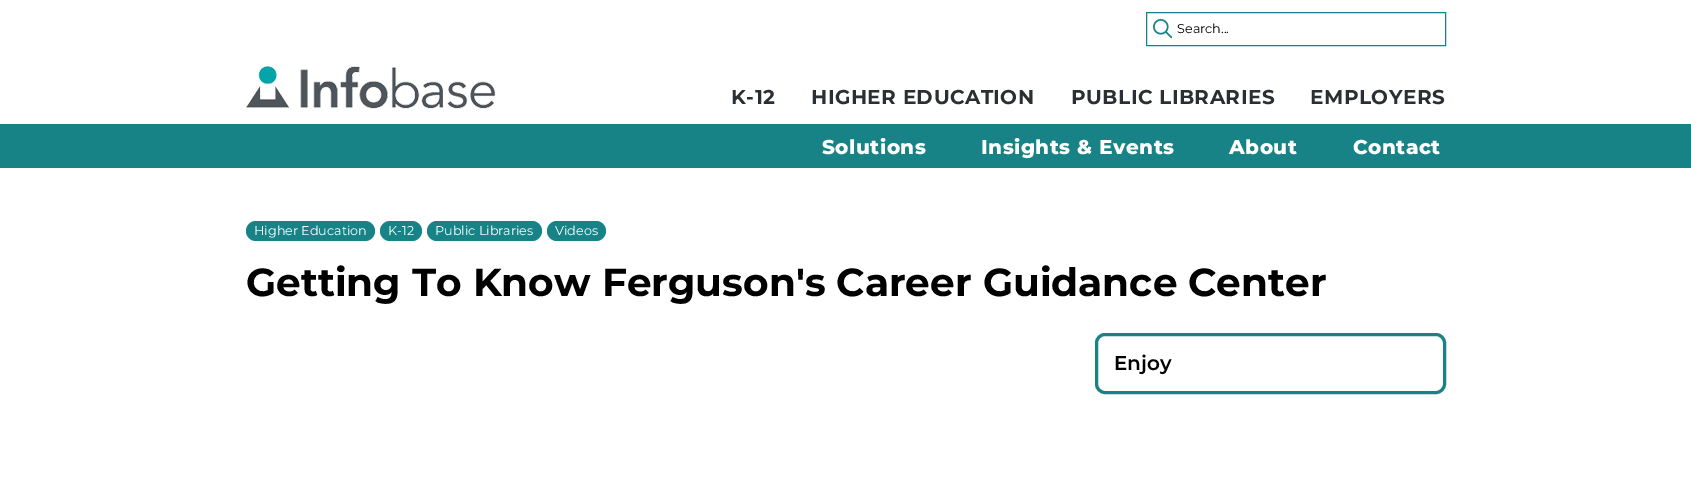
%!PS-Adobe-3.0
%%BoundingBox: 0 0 1691 492
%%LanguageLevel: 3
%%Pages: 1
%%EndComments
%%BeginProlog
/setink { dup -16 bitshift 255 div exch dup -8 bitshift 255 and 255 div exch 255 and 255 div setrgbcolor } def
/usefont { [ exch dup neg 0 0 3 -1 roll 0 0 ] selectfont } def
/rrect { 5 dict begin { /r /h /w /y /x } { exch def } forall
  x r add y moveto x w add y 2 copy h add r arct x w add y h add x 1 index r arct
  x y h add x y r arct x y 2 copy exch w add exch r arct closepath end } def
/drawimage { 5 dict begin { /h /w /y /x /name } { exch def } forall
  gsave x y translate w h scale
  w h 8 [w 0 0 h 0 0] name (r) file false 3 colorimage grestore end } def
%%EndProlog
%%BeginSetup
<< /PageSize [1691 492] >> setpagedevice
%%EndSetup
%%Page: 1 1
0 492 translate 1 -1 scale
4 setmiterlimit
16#FFFFFF setink
0 0 1691 492 rectfill
(img1.raw) 1153 19 19 20 drawimage
16#188386 setink
1146.5 12.5 299 33 rectstroke
/Montserrat-Regular 12.75 usefont
16#000000 setink
1177 33 moveto (Search...) show
(img2.raw) 246 66 250 43 drawimage
/Montserrat-Bold 20 usefont
16#2B2E32 setink
731 104 moveto 0.5 0 (K-12) ashow
811 104 moveto 0.5 0 (HIGHER EDUCATION) ashow
1071 104 moveto 0.5 0 (PUBLIC LIBRARIES) ashow
1310 104 moveto 0.5 0 (EMPLOYERS) ashow
16#188386 setink
0 124 1691 44 rectfill
/Montserrat-ExtraBold 20 usefont
16#FFFFFF setink
822 154 moveto 0.5 0 (Solutions) ashow
981 154 moveto 0.5 0 (Insights & Events) ashow
1229 154 moveto 0.5 0 (About) ashow
1353 154 moveto 0.5 0 (Contact) ashow
16#188386 setink
246 221 129 20 10 rrect fill
/Montserrat-Regular 12.75 usefont
16#FFFFFF setink
254 235 moveto (Higher Education) show
16#188386 setink
380 221 42 20 10 rrect fill
16#FFFFFF setink
388 235 moveto (K-12) show
16#188386 setink
427 221 115 20 10 rrect fill
16#FFFFFF setink
435 235 moveto (Public Libraries) show
16#188386 setink
547 221 59 20 10 rrect fill
16#FFFFFF setink
555 235 moveto (Videos) show
/Montserrat-Bold 39.05 usefont
16#000000 setink
246 296 moveto (Getting To Know Ferguson's Career Guidance Center) show
16#188386 setink
3 setlinewidth
1096.5 334.5 348 58 8.5 rrect stroke
/Montserrat-SemiBold 20 usefont
16#000000 setink
1114 370 moveto (Enjoy) show
showpage
%%EOF
